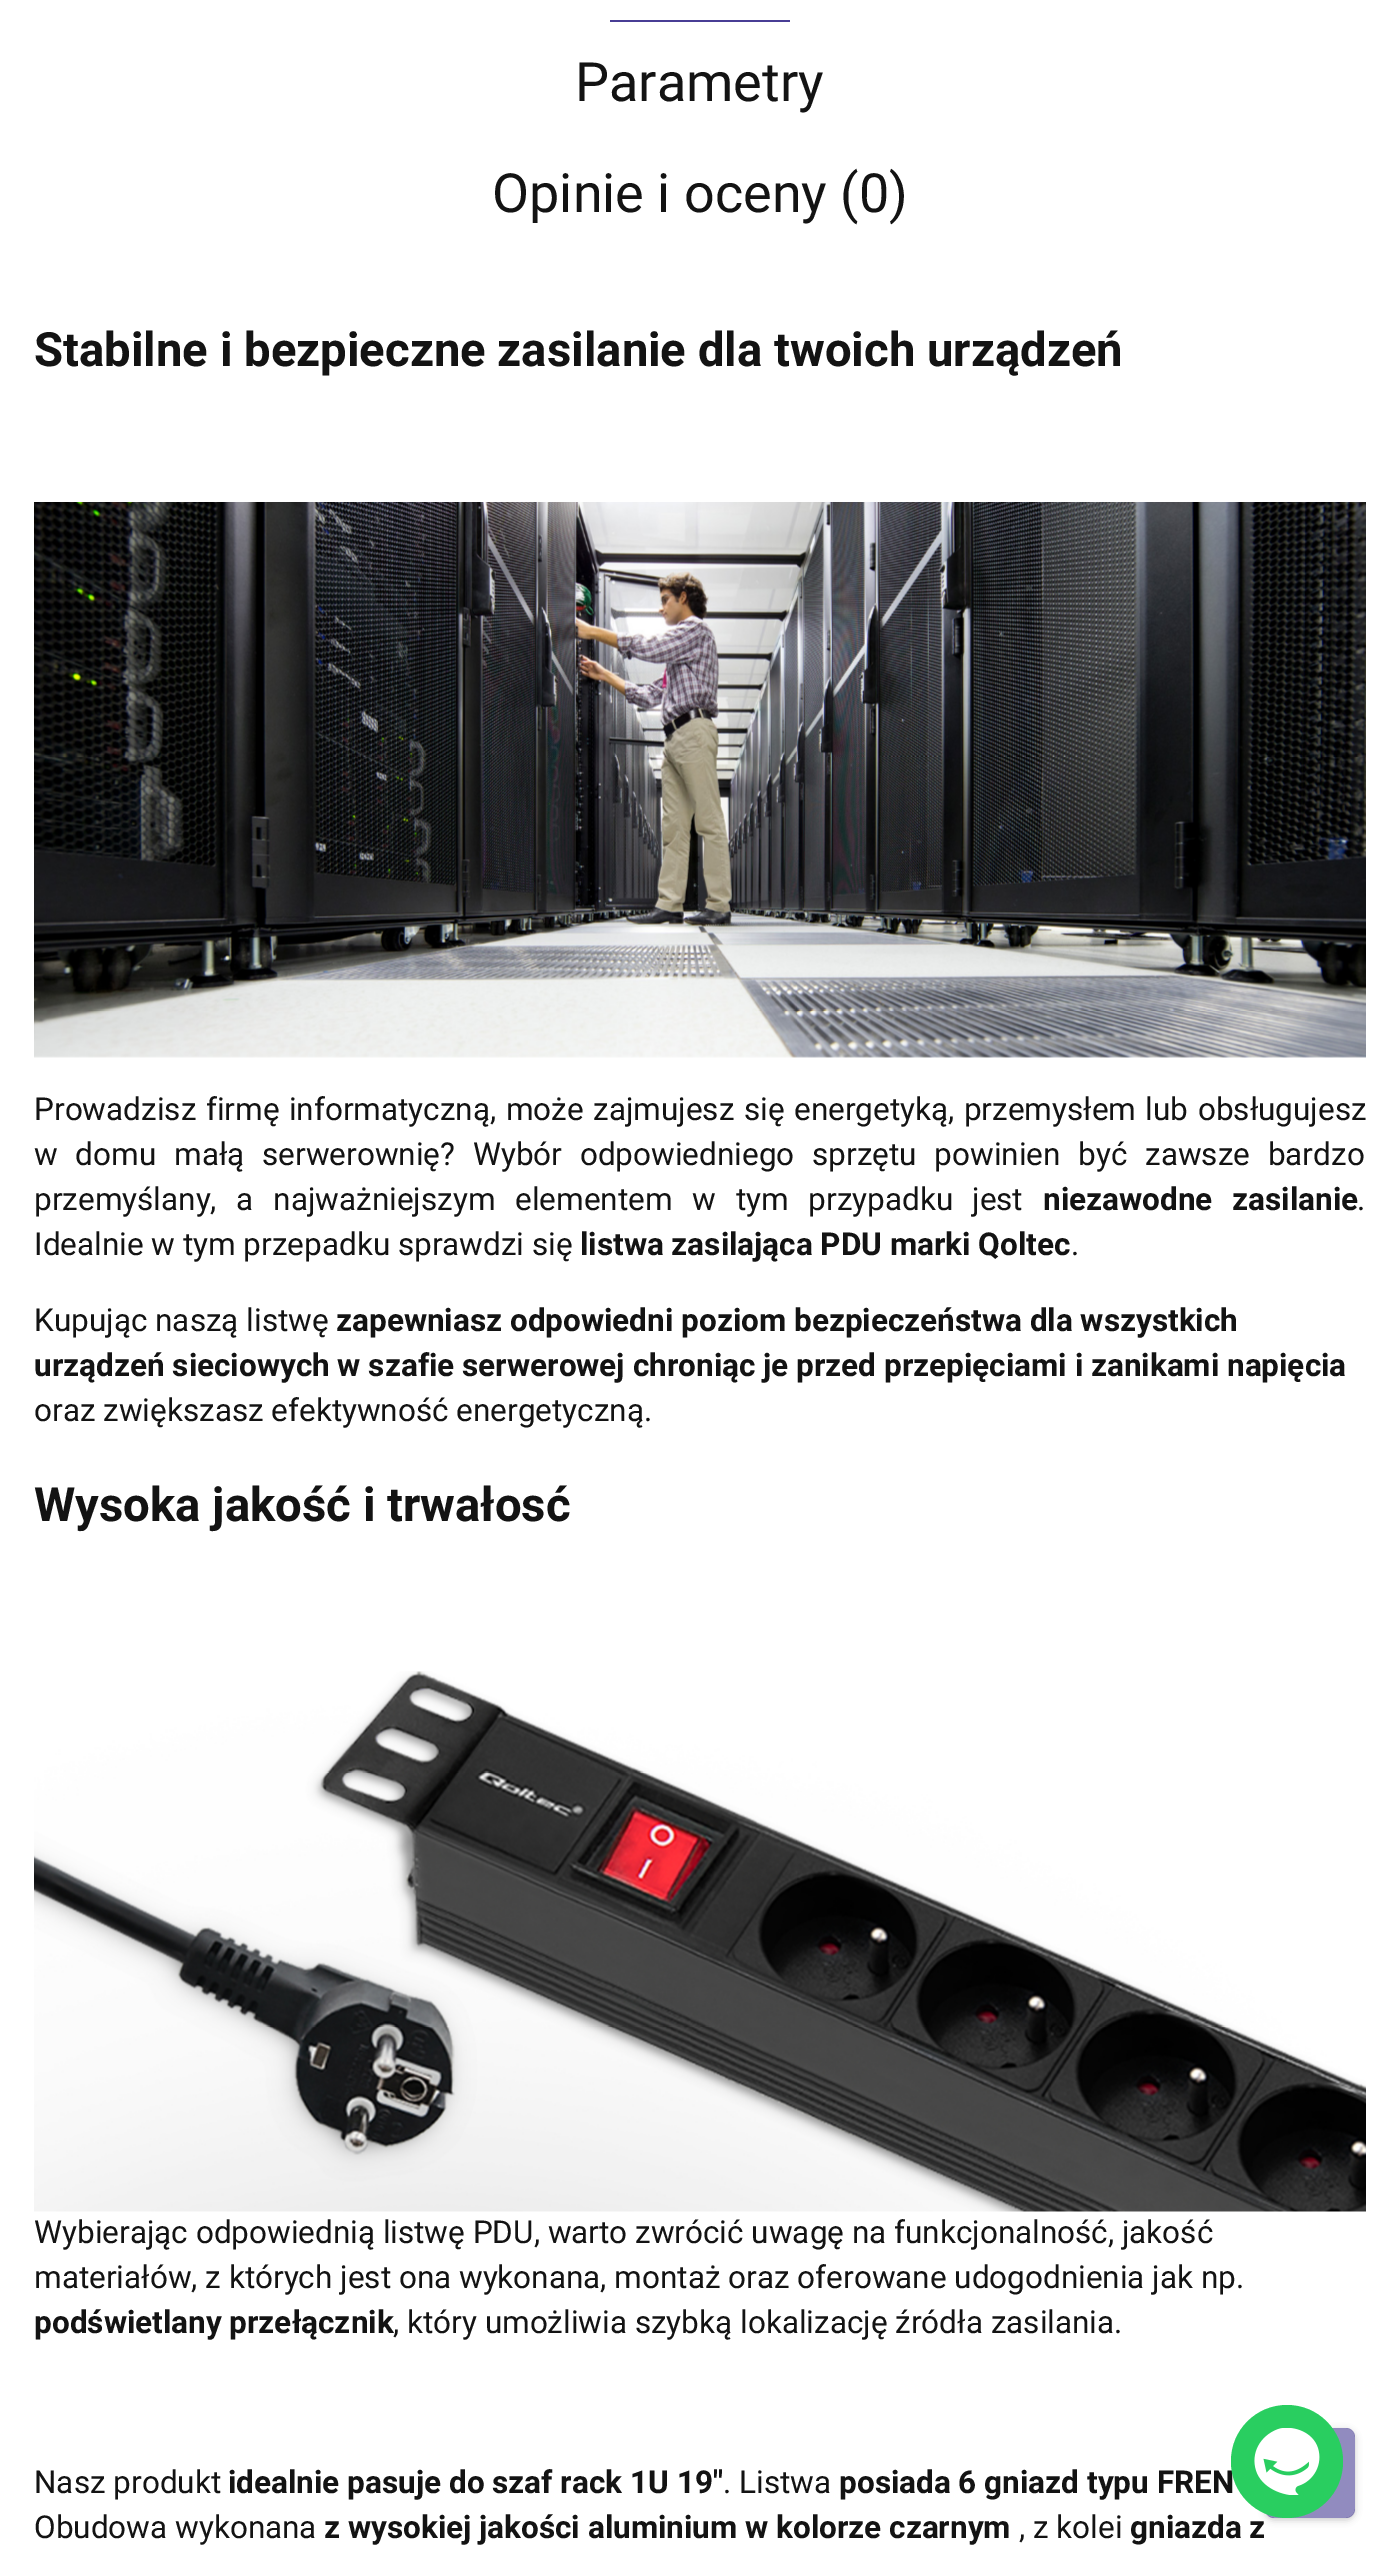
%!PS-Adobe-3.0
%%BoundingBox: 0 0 1398 2561
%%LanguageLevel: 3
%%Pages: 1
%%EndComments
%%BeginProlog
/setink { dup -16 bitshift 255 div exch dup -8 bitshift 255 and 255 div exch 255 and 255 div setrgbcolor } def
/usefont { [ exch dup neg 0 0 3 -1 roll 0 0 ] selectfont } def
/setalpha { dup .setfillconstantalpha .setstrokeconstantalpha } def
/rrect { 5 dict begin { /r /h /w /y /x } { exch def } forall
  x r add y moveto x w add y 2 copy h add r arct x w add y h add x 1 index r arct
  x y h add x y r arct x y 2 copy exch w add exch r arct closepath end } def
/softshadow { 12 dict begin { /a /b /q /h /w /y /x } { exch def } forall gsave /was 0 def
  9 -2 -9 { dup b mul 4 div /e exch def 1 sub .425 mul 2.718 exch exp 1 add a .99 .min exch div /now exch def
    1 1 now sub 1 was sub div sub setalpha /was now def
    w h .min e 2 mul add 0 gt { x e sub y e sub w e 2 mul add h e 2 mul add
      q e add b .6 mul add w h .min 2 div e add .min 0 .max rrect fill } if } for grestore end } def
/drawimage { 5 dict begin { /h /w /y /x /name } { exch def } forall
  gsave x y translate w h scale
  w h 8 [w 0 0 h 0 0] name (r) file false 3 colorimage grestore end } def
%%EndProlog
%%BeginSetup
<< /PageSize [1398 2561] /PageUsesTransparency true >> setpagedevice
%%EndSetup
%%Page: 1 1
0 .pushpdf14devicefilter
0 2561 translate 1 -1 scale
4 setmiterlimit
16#FFFFFF setink
0 0 1398 2561 rectfill
16#483E95 setink
610 20 180 2 rectfill
/Roboto-Regular 54 usefont
16#131313 setink
575 101 moveto (Parametry) show
492 212 moveto (Opinie i oceny \(0\)) show
/Roboto-Bold 47.25 usefont
34 366 moveto (Stabilne i bezpieczne zasilanie dla twoich urządzeń) show
(img1.raw) 34 502 1332 556 drawimage
/Roboto-Regular 31.5 usefont
34 1120 moveto 1.75 0 32 (Prowadzisz firmę informatyczną, może zajmujesz się energetyką, przemysłem lub obsługujesz) widthshow
34 1165 moveto 10 0 32 (w domu małą serwerownię? Wybór odpowiedniego sprzętu powinien być zawsze bardzo) widthshow
34 1210 moveto 12 0 32 (przemyślany, a najważniejszym elementem w tym przypadku) widthshow
972 1210 moveto (jest) show
/Roboto-Bold 31.5 usefont
1043 1210 moveto 12 0 32 (niezawodne zasilanie) widthshow
/Roboto-Regular 31.5 usefont
1357 1210 moveto (.) show
34 1255 moveto (Idealnie w tym przepadku sprawdzi się) show
/Roboto-Bold 31.5 usefont
580 1255 moveto (listwa zasilająca PDU marki Qoltec) show
/Roboto-Regular 31.5 usefont
1071 1255 moveto (.) show
34 1331 moveto (Kupując naszą listwę) show
/Roboto-Bold 31.5 usefont
336 1331 moveto (zapewniasz odpowiedni poziom bezpieczeństwa dla wszystkich) show
34 1376 moveto (urządzeń sieciowych w szafie serwerowej chroniąc je przed przepięciami i zanikami napięcia) show
/Roboto-Regular 31.5 usefont
34 1421 moveto (oraz zwiększasz efektywność energetyczną.) show
/Roboto-Bold 47.25 usefont
34 1521 moveto (Wysoka jakość i trwałosć) show
(img2.raw) 34 1671 1332 541 drawimage
/Roboto-Regular 31.5 usefont
34 2243 moveto (Wybierając odpowiednią listwę PDU, warto zwrócić uwagę na funkcjonalność, jakość) show
34 2288 moveto (materiałów, z których jest ona wykonana, montaż oraz oferowane udogodnienia jak np.) show
/Roboto-Bold 31.5 usefont
34 2333 moveto (podświetlany przełącznik) show
/Roboto-Regular 31.5 usefont
393 2333 moveto (, który umożliwia szybką lokalizację źródła zasilania.) show
34 2493 moveto (Nasz produkt) show
/Roboto-Bold 31.5 usefont
228 2493 moveto (idealnie pasuje do szaf rack 1U 19") show
/Roboto-Regular 31.5 usefont
723 2493 moveto (. Listwa) show
/Roboto-Bold 31.5 usefont
839 2493 moveto (posiada 6 gniazd typu FREN) show
/Roboto-Regular 31.5 usefont
34 2538 moveto (Obudowa wykonana) show
/Roboto-Bold 31.5 usefont
324 2538 moveto (z wysokiej jakości aluminium w kolorze czarnym) show
/Roboto-Regular 31.5 usefont
1019 2538 moveto (, z kolei) show
/Roboto-Bold 31.5 usefont
1130 2538 moveto (gniazda z) show
gsave
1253 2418 moveto 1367 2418 lineto 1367 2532 lineto 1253 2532 lineto closepath 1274 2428 moveto 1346 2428 lineto 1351 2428 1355 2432 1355 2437 curveto 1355 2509 lineto 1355 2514 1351 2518 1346 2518 curveto 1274 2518 lineto 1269 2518 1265 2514 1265 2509 curveto 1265 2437 lineto 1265 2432 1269 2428 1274 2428 curveto closepath eoclip newpath
16#000000 setink
1265 2430 90 90 9 3.5 0.2 softshadow
grestore
0.6 setalpha
16#483E95 setink
1265 2428 90 90 9 rrect fill
1 setalpha
16#29CE60 setink
1231 2405 112 113 56 rrect fill
(img3.raw) 1254 2428 66 67 drawimage
.poppdf14devicefilter showpage
%%EOF
